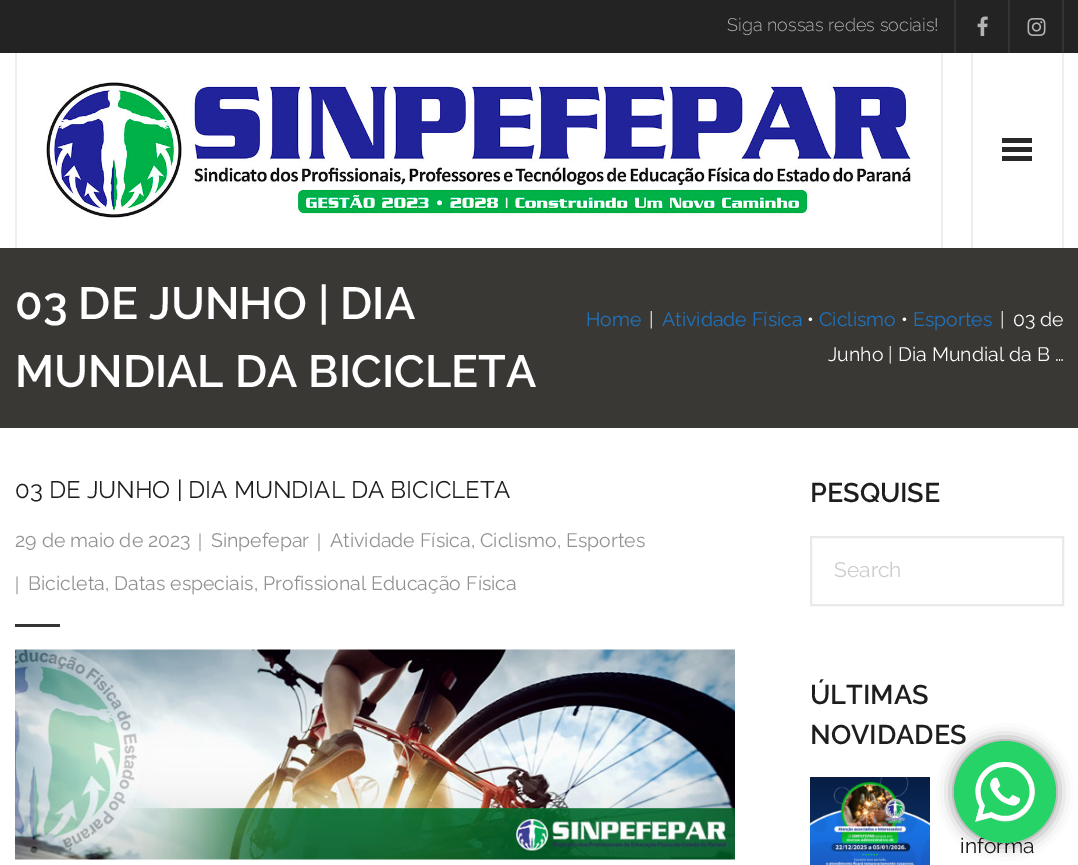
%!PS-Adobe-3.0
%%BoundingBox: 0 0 1078 865
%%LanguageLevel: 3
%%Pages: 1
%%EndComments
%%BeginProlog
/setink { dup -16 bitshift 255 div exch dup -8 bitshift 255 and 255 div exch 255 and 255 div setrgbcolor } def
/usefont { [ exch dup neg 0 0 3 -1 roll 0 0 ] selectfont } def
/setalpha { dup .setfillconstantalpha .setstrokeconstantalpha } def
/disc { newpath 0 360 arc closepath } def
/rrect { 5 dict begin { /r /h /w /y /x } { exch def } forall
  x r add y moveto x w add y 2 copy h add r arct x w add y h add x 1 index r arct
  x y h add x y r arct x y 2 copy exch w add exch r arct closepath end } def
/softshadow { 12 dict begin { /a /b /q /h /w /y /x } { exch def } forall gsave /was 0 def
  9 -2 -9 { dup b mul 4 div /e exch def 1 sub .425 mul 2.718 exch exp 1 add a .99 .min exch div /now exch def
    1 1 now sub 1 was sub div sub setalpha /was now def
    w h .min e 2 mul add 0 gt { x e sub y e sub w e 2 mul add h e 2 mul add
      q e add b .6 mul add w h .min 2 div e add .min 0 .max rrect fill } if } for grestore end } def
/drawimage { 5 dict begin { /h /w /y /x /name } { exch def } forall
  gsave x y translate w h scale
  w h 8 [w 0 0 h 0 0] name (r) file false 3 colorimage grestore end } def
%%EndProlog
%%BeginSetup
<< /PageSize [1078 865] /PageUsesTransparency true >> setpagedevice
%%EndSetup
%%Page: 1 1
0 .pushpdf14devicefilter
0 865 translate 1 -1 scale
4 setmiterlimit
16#FFFFFF setink
0 0 1078 865 rectfill
16#232323 setink
0 0 1078 53 rectfill
/Raleway-Light 18 usefont
16#B3B3B3 setink
727 31 moveto (Siga nossas redes sociais!) show
16#333333 setink
954 0 2 53 rectfill
(img1.raw) 977 16 11 20 drawimage
1062 0 2 53 rectfill
1008 0 2 53 rectfill
(img2.raw) 1027 18 19 18 drawimage
16#EEEEEE setink
941 53 2 195 rectfill
15 53 2 195 rectfill
(img3.raw) 46 82 865 136 drawimage
[
    [1062 53 2 195 16#EEEEEE]
    [971 53 2 195 16#EEEEEE]
    [1002 138 30 5 16#292929]
    [1002 147 30 5 16#292929]
    [1002 156 30 5 16#292929]
    [0 248 1078 180 16#3A3835]
] { aload pop setink rectfill } forall
/Raleway-SemiBold 45 usefont
16#FFFFFF setink
15 319 moveto (03 DE JUNHO | DIA) show
15 387 moveto (MUNDIAL DA BICICLETA) show
/Raleway-Regular 19.5 usefont
16#1E73BE setink
586 326 moveto (Home) show
16#FFFFFF setink
649 326 moveto (|) show
16#1E73BE setink
662 326 moveto (Atividade Física) show
16#FFFFFF setink
807 326 moveto (•) show
16#1E73BE setink
819 326 moveto (Ciclismo) show
16#FFFFFF setink
901 326 moveto (•) show
16#1E73BE setink
913 326 moveto (Esportes) show
16#FFFFFF setink
[
    [(|) 1000 326]
    [(03 de) 1013 326]
    [(Junho | Dia Mundial da B …) 828 361]
] { aload pop moveto show } forall
/Raleway-Regular 24 usefont
16#1E1E1E setink
15 498 moveto (03 DE JUNHO | DIA MUNDIAL DA BICICLETA) show
/Raleway-Regular 19.5 usefont
16#919191 setink
15 547 moveto (29 de maio de 2023) show
/LiberationSerif-Regular 19.5 usefont
198 547 moveto (|) show
/Raleway-Regular 19.5 usefont
211 547 moveto (Sinpefepar) show
/LiberationSerif-Regular 19.5 usefont
317 547 moveto (|) show
/Raleway-Regular 19.5 usefont
330 547 moveto (Atividade Física) show
16#858585 setink
471 547 moveto (,) show
16#919191 setink
480 547 moveto (Ciclismo) show
16#858585 setink
557 547 moveto (,) show
16#919191 setink
566 547 moveto (Esportes) show
/LiberationSerif-Regular 19.5 usefont
15 590 moveto (|) show
/Raleway-Regular 19.5 usefont
28 590 moveto (Bicicleta) show
16#858585 setink
105 590 moveto (,) show
16#919191 setink
114 590 moveto (Datas especiais) show
16#858585 setink
254 590 moveto (,) show
16#919191 setink
263 590 moveto (Profissional Educação Física) show
16#353535 setink
15 624 45 3 rectfill
(img4.raw) 15 649 720 211 drawimage
/Raleway-SemiBold 27 usefont
16#1E1E1E setink
810 502 moveto (PESQUISE) show
16#E9E9E9 setink
2 setlinewidth
811 537 252 68 rectstroke
/Raleway-Regular 21 usefont
16#CCCCCC setink
834 577 moveto (Search) show
/Raleway-SemiBold 27 usefont
16#1E1E1E setink
810 704 moveto (ÚLTIMAS) show
810 744 moveto (NOVIDADES) show
(img5.raw) 810 777 120 88 drawimage
/Raleway-Regular 21 usefont
960 853 moveto (informa) show
16#000000 setink
954 741 102 102 51 8 0.5 softshadow
16#25D366 setink
1005 792 51 disc fill
(img6.raw) 975 762 60 60 drawimage
.poppdf14devicefilter showpage
%%EOF
